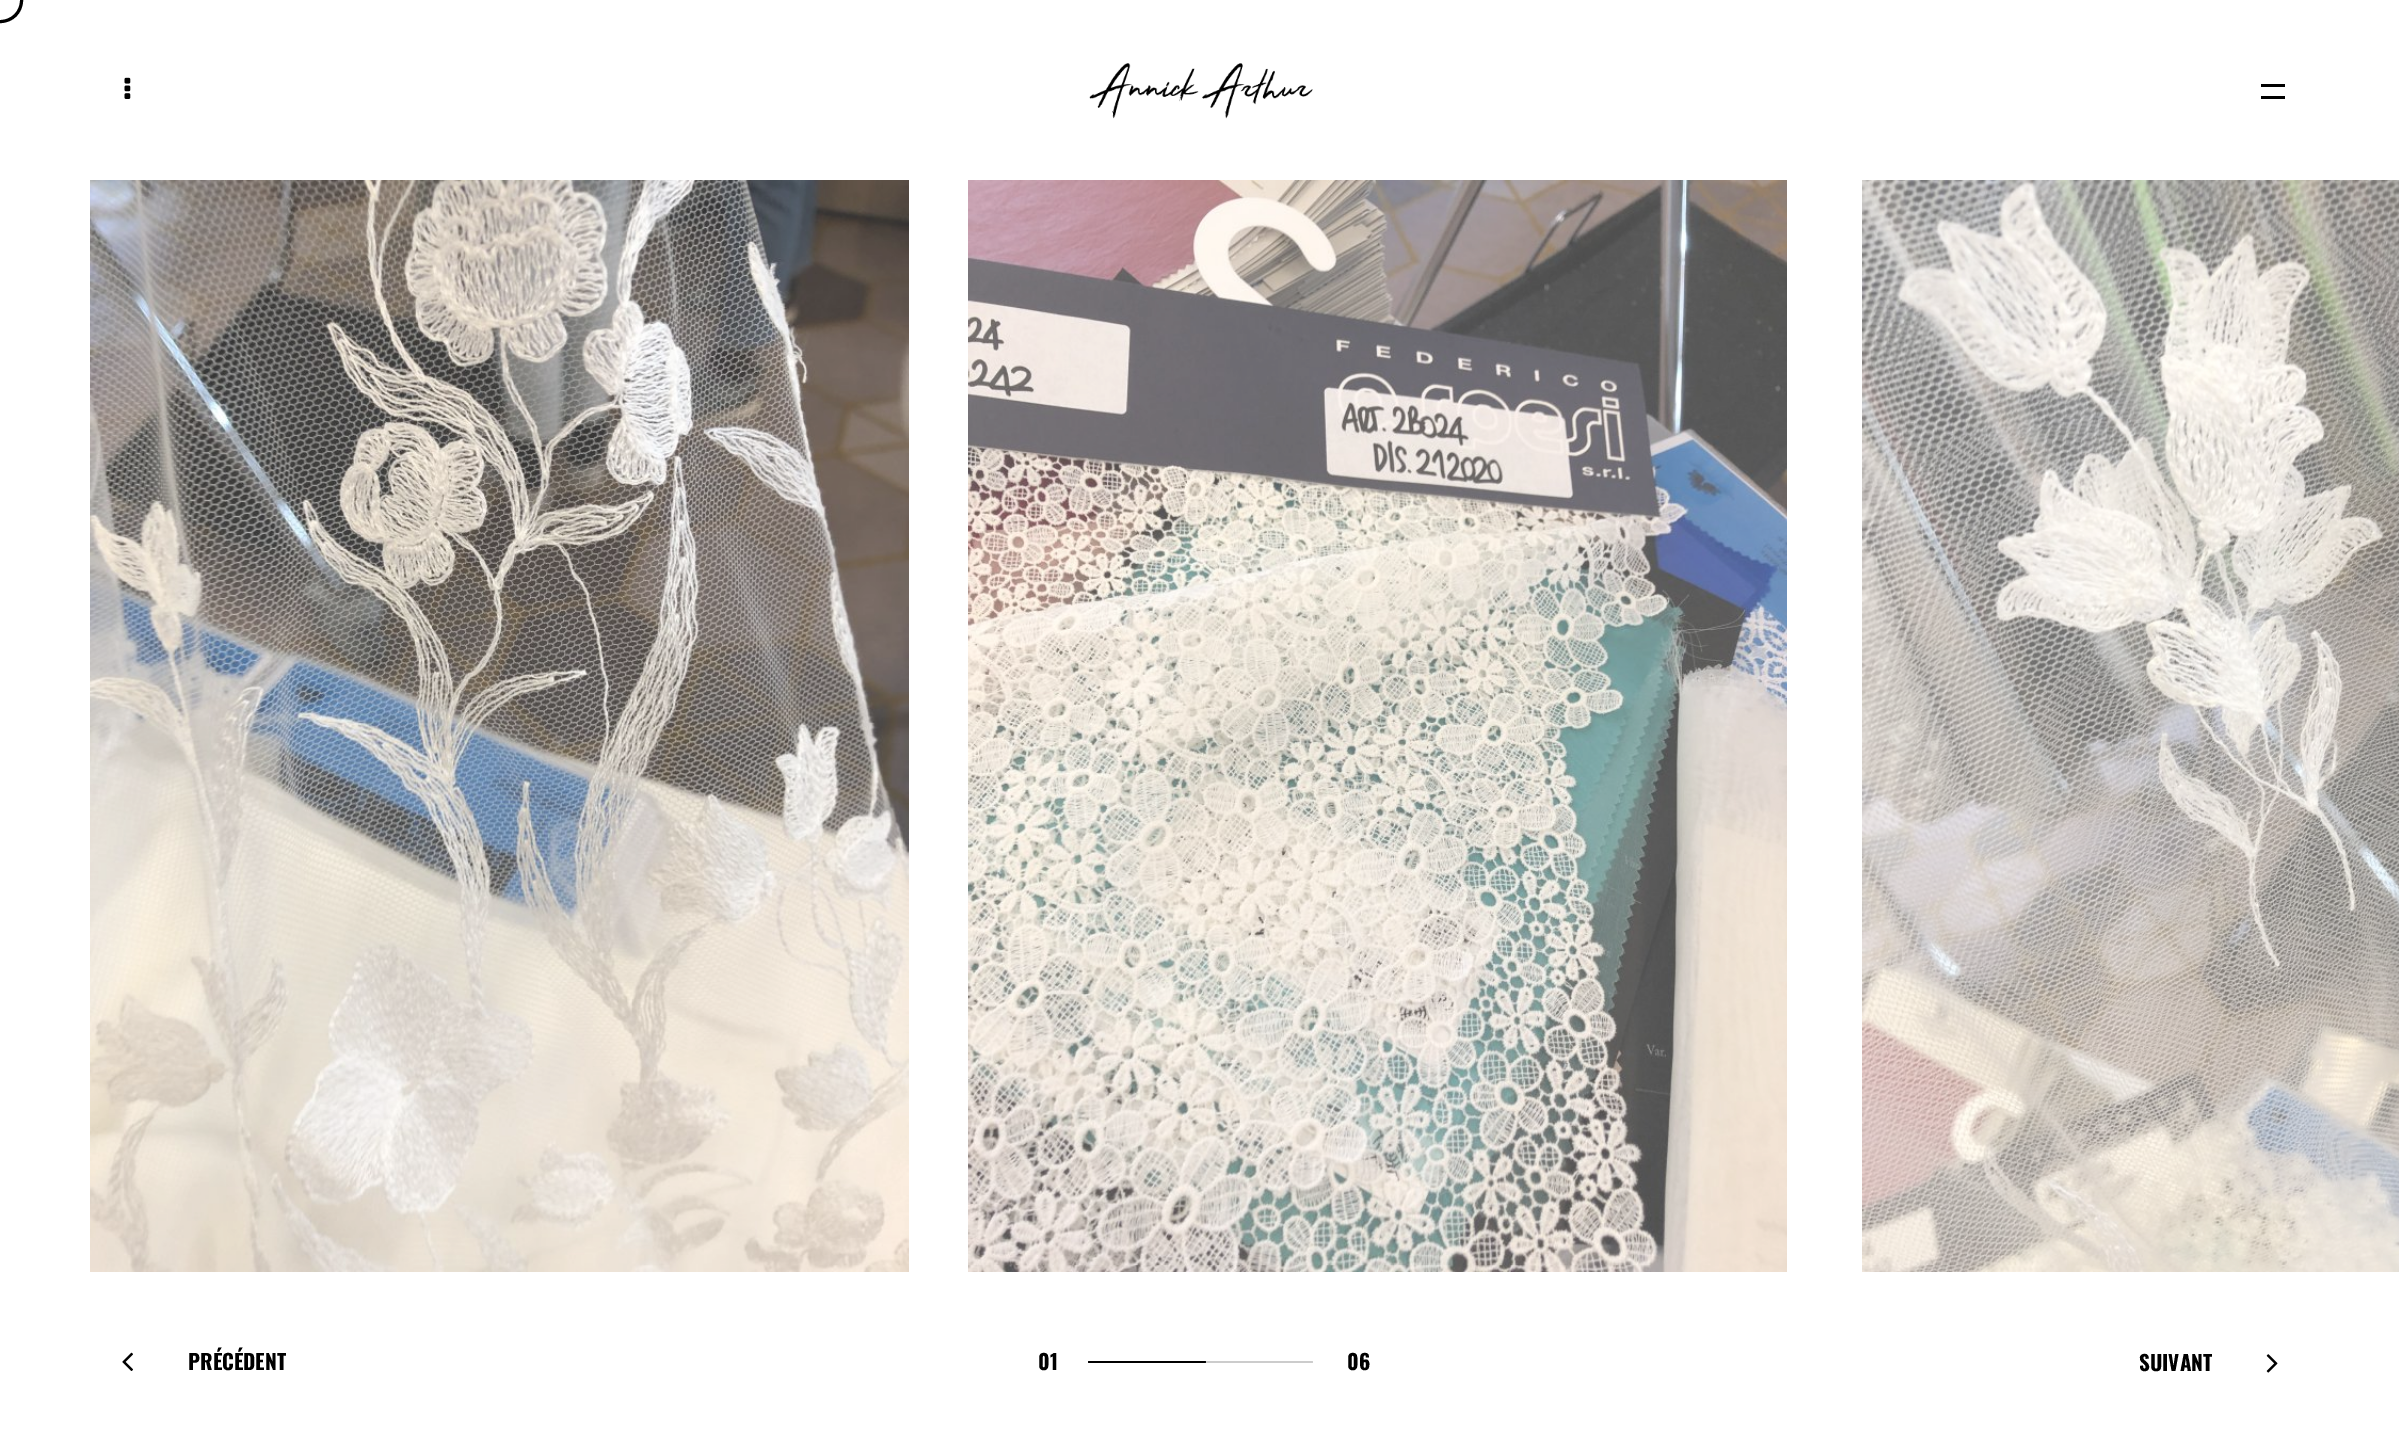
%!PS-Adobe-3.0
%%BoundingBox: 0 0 2399 1451
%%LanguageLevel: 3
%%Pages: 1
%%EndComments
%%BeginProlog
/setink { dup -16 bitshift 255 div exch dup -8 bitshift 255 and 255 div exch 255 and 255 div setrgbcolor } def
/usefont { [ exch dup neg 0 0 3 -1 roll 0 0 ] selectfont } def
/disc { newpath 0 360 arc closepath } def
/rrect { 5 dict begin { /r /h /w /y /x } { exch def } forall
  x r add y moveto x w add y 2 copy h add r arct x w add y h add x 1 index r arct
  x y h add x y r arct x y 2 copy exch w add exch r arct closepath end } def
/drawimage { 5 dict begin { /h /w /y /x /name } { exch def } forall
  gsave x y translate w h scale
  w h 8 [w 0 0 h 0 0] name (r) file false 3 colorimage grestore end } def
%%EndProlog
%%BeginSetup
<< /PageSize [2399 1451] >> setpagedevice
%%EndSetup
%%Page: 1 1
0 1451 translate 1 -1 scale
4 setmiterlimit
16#FFFFFF setink
0 0 2399 1451 rectfill
16#000000 setink
3 setlinewidth
0.5 0.5 21 disc stroke
(img1.raw) 124 77 7 22 drawimage
(img2.raw) 1089 63 224 56 drawimage
2261 84 24 3 rectfill
2261 96 24 3 rectfill
(img3.raw) 90 180 819 1092 drawimage
(img4.raw) 968 180 819 1092 drawimage
(img5.raw) 1862 180 537 1092 drawimage
(img6.raw) 122 1352 11 19 drawimage
/Oswald-Bold 21 usefont
[
    [(PRÉCÉDENT) 188 1370]
    [(01) 1038 1370]
    [(06) 1347 1370]
] { aload pop moveto show } forall
16#CCCCCC setink
1088 1361 225 2 1 rrect fill
16#000000 setink
1088 1361 118 2 1 rrect fill
2139 1371 moveto (SUIVANT) show
(img7.raw) 2266 1354 12 19 drawimage
showpage
%%EOF
